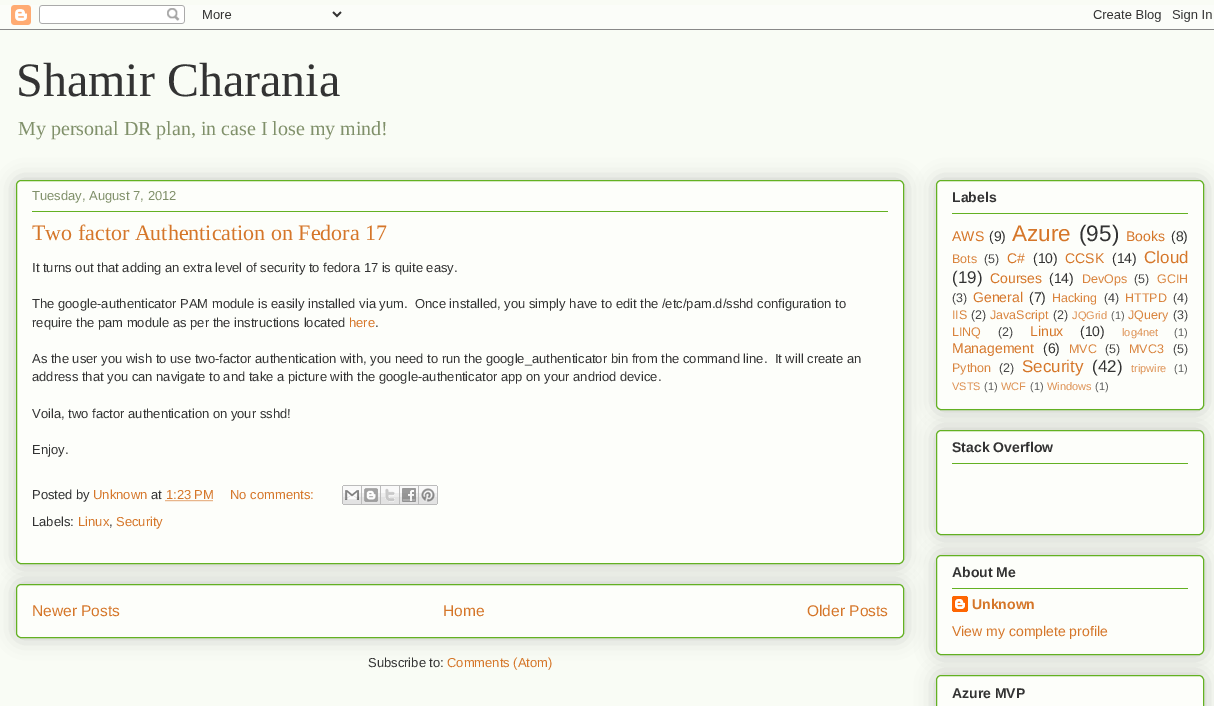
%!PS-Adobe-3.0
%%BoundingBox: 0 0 1214 706
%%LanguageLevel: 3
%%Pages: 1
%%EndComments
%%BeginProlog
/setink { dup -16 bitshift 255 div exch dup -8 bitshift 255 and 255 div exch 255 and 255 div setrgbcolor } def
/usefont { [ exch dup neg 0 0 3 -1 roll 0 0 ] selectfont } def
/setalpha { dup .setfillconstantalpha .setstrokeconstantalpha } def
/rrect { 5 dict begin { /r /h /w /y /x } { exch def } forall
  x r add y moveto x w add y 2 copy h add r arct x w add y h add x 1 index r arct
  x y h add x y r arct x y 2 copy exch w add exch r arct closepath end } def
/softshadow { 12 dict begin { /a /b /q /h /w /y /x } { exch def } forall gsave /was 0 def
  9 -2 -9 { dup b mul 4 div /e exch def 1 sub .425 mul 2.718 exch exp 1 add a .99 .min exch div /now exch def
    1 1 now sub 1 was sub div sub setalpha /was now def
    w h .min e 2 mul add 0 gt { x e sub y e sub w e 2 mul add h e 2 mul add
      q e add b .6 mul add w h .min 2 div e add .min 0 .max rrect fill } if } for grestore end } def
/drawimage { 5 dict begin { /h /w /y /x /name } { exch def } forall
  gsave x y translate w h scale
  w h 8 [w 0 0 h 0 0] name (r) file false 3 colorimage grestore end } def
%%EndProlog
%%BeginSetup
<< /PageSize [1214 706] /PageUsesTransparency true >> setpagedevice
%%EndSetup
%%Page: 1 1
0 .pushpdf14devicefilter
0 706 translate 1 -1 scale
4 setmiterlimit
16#F9FCF5 setink
0 0 1214 706 rectfill
(img1.raw) 0 5 1214 25 drawimage
/LiberationSerif-Regular 48 usefont
16#333333 setink
16 96 moveto (Shamir Charania) show
/LiberationSerif-Regular 20 usefont
16#80906A setink
18 135 moveto (My personal DR plan, in case I lose my mind!) show
16#000000 setink
16 584 888 54 5 10 0.2 softshadow
16#FDFEFA setink
16.5 584.5 887 53 4.5 rrect gsave fill grestore
16#63B122 setink
stroke
16#000000 setink
16 180 888 384 5 10 0.2 softshadow
16#FDFEFA setink
16.5 180.5 887 383 4.5 rrect gsave fill grestore
16#63B122 setink
stroke
/LiberationSans-Regular 13 usefont
16#80906A setink
32 200 moveto (Tuesday, August 7, 2012) show
16#63B122 setink
32 211 856 1 rectfill
/LiberationSerif-Regular 22 usefont
16#D57629 setink
32 240 moveto (Two factor Authentication on Fedora 17) show
/LiberationSans-Regular 13 usefont
16#333333 setink
[
    [(It turns out that adding an extra level of security to fedora 17 is quite easy.) 32 272]
    [(The google-authenticator PAM module is easily installed via yum.  Once installed, you simply have to edit the /etc/pam.d/sshd configuration to) 32 308]
    [(require the pam module as per the instructions located) 32 327]
] { aload pop moveto show } forall
16#D57629 setink
349 327 moveto (here) show
16#333333 setink
[
    [(.) 375 327]
    [(As the user you wish to use two-factor authentication with, you need to run the google_authenticator bin from the command line.  It will create an) 32 363]
    [(address that you can navigate to and take a picture with the google-authenticator app on your andriod device.) 32 381]
    [(Voila, two factor authentication on your sshd!) 32 418]
    [(Enjoy.) 32 454]
    [(Posted by) 32 499]
] { aload pop moveto show } forall
16#D57629 setink
93 499 moveto (Unknown) show
16#333333 setink
151 499 moveto (at) show
16#D57629 setink
166 499 moveto (1:23 PM) show
[1 1] 0 setdash
165.5 500.5 moveto 213 500.5 lineto stroke
230 499 moveto (No comments:) show
(img2.raw) 342 485 20 20 drawimage
(img3.raw) 362 485 19 20 drawimage
(img4.raw) 381 485 19 20 drawimage
(img5.raw) 400 485 19 20 drawimage
(img6.raw) 419 485 19 20 drawimage
16#333333 setink
32 526 moveto (Labels:) show
16#D57629 setink
78 526 moveto (Linux) show
16#333333 setink
109 526 moveto (,) show
16#D57629 setink
116 526 moveto (Security) show
/LiberationSans-Regular 15.5 usefont
[
    [(Newer Posts) 32 616]
    [(Home) 443 616]
    [(Older Posts) 807 616]
] { aload pop moveto show } forall
/LiberationSans-Regular 13 usefont
16#333333 setink
368 667 moveto (Subscribe to:) show
16#D57629 setink
447 667 moveto (Comments \(Atom\)) show
16#000000 setink
936 180 268 230 5 10 0.2 softshadow
16#FDFEFA setink
936.5 180.5 267 229 4.5 rrect gsave fill grestore
16#63B122 setink
[] 0 setdash
stroke
/LiberationSans-Bold 14 usefont
16#333333 setink
952 202 moveto (Labels) show
16#63B122 setink
952 213 236 1 rectfill
/LiberationSans-Regular 14 usefont
16#D57629 setink
952 241 moveto (AWS) show
16#333333 setink
989 241 moveto (\(9\)) show
/LiberationSans-Regular 22.5 usefont
16#D57629 setink
1012 241 moveto (Azure) show
16#333333 setink
1079 241 moveto (\(95\)) show
/LiberationSans-Regular 14 usefont
16#D57629 setink
1126 241 moveto (Books) show
16#333333 setink
1171 241 moveto (\(8\)) show
/LiberationSans-Regular 12.5 usefont
16#D9843E setink
952 263 moveto (Bots) show
16#474747 setink
984 263 moveto (\(5\)) show
/LiberationSans-Regular 14 usefont
16#D57629 setink
1007 263 moveto (C#) show
16#333333 setink
1033 263 moveto (\(10\)) show
16#D57629 setink
1065 263 moveto (CCSK) show
16#333333 setink
1112 263 moveto (\(14\)) show
/LiberationSans-Regular 17 usefont
16#D57629 setink
1144 263 moveto (Cloud) show
16#333333 setink
952 283 moveto (\(19\)) show
/LiberationSans-Regular 14 usefont
16#D57629 setink
990 283 moveto (Courses) show
16#333333 setink
1049 283 moveto (\(14\)) show
/LiberationSans-Regular 12.5 usefont
16#D9843E setink
1082 283 moveto (DevOps) show
16#474747 setink
1134 283 moveto (\(5\)) show
16#D9843E setink
1157 283 moveto (GCIH) show
16#474747 setink
952 302 moveto (\(3\)) show
/LiberationSans-Regular 14 usefont
16#D57629 setink
973 302 moveto (General) show
16#333333 setink
1029 302 moveto (\(7\)) show
/LiberationSans-Regular 12.5 usefont
16#D9843E setink
1052 302 moveto (Hacking) show
16#474747 setink
1104 302 moveto (\(4\)) show
16#D9843E setink
1125 302 moveto (HTTPD) show
16#474747 setink
1173 302 moveto (\(4\)) show
16#D9843E setink
952 319 moveto (IIS) show
16#474747 setink
971 319 moveto (\(2\)) show
16#D9843E setink
990 319 moveto (JavaScript) show
16#474747 setink
1053 319 moveto (\(2\)) show
/LiberationSans-Regular 11 usefont
16#DD9153 setink
1072 319 moveto (JQGrid) show
16#5B5C5B setink
1111 319 moveto (\(1\)) show
/LiberationSans-Regular 12.5 usefont
16#D9843E setink
1128 319 moveto (JQuery) show
16#474747 setink
1173 319 moveto (\(3\)) show
16#D9843E setink
952 336 moveto (LINQ) show
16#474747 setink
998 336 moveto (\(2\)) show
/LiberationSans-Regular 14 usefont
16#D57629 setink
1030 336 moveto (Linux) show
16#333333 setink
1080 336 moveto (\(10\)) show
/LiberationSans-Regular 11 usefont
16#DD9153 setink
1122 336 moveto (log4net) show
16#5B5C5B setink
1174 336 moveto (\(1\)) show
/LiberationSans-Regular 14 usefont
16#D57629 setink
952 353 moveto (Management) show
16#333333 setink
1043 353 moveto (\(6\)) show
/LiberationSans-Regular 12.5 usefont
16#D9843E setink
1069 353 moveto (MVC) show
16#474747 setink
1105 353 moveto (\(5\)) show
16#D9843E setink
1129 353 moveto (MVC3) show
16#474747 setink
1173 353 moveto (\(5\)) show
16#D9843E setink
952 372 moveto (Python) show
16#474747 setink
999 372 moveto (\(2\)) show
/LiberationSans-Regular 17 usefont
16#D57629 setink
1022 372 moveto (Security) show
16#333333 setink
1092 372 moveto (\(42\)) show
/LiberationSans-Regular 11 usefont
16#DD9153 setink
1131 372 moveto (tripwire) show
16#5B5C5B setink
1174 372 moveto (\(1\)) show
16#DD9153 setink
952 390 moveto (VSTS) show
16#5B5C5B setink
984 390 moveto (\(1\)) show
16#DD9153 setink
1001 390 moveto (WCF) show
16#5B5C5B setink
1030 390 moveto (\(1\)) show
16#DD9153 setink
1047 390 moveto (Windows) show
16#5B5C5B setink
1095 390 moveto (\(1\)) show
16#000000 setink
936 430 268 105 5 10 0.2 softshadow
16#FDFEFA setink
936.5 430.5 267 104 4.5 rrect gsave fill grestore
16#63B122 setink
stroke
/LiberationSans-Bold 14 usefont
16#333333 setink
952 452 moveto (Stack Overflow) show
16#63B122 setink
952 463 236 1 rectfill
16#000000 setink
936 555 268 100 5 10 0.2 softshadow
16#FDFEFA setink
936.5 555.5 267 99 4.5 rrect gsave fill grestore
16#63B122 setink
stroke
16#333333 setink
952 577 moveto (About Me) show
16#63B122 setink
952 588 236 1 rectfill
(img7.raw) 952 596 16 16 drawimage
16#D57629 setink
972 609 moveto (Unknown) show
/LiberationSans-Regular 14 usefont
952 636 moveto (View my complete profile) show
16#000000 setink
936 675 268 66 5 10 0.2 softshadow
16#FDFEFA setink
936.5 675.5 267 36 4.5 rrect gsave fill grestore
16#63B122 setink
stroke
/LiberationSans-Bold 14 usefont
16#333333 setink
952 698 moveto (Azure MVP) show
.poppdf14devicefilter showpage
%%EOF
